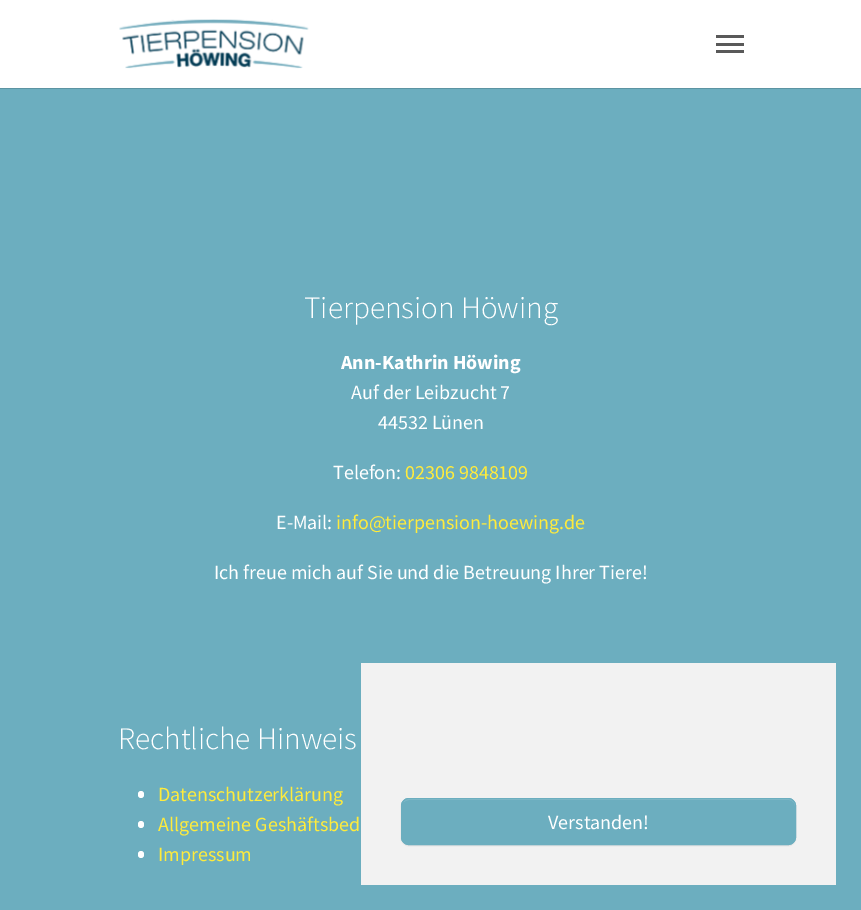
%!PS-Adobe-3.0
%%BoundingBox: 0 0 861 910
%%LanguageLevel: 3
%%Pages: 1
%%EndComments
%%BeginProlog
/setink { dup -16 bitshift 255 div exch dup -8 bitshift 255 and 255 div exch 255 and 255 div setrgbcolor } def
/usefont { [ exch dup neg 0 0 3 -1 roll 0 0 ] selectfont } def
/setalpha { dup .setfillconstantalpha .setstrokeconstantalpha } def
/rrect { 5 dict begin { /r /h /w /y /x } { exch def } forall
  x r add y moveto x w add y 2 copy h add r arct x w add y h add x 1 index r arct
  x y h add x y r arct x y 2 copy exch w add exch r arct closepath end } def
/softshadow { 12 dict begin { /a /b /q /h /w /y /x } { exch def } forall gsave /was 0 def
  9 -2 -9 { dup b mul 4 div /e exch def 1 sub .425 mul 2.718 exch exp 1 add a .99 .min exch div /now exch def
    1 1 now sub 1 was sub div sub setalpha /was now def
    w h .min e 2 mul add 0 gt { x e sub y e sub w e 2 mul add h e 2 mul add
      q e add b .6 mul add w h .min 2 div e add .min 0 .max rrect fill } if } for grestore end } def
/drawimage { 5 dict begin { /h /w /y /x /name } { exch def } forall
  gsave x y translate w h scale
  w h 8 [w 0 0 h 0 0] name (r) file false 3 colorimage grestore end } def
%%EndProlog
%%BeginSetup
<< /PageSize [861 910] /PageUsesTransparency true >> setpagedevice
%%EndSetup
%%Page: 1 1
0 .pushpdf14devicefilter
0 910 translate 1 -1 scale
4 setmiterlimit
16#6CAEBF setink
0 0 861 910 rectfill
16#5C94A2 setink
0 88 861 1 rectfill
16#FFFFFF setink
0 0 861 88 rectfill
(img1.raw) 119 19 190 50 drawimage
[
    [716 43 28 3 16#595959]
    [716 35 28 3 16#595959]
    [716 50 28 3 16#595959]
] { aload pop setink rectfill } forall
/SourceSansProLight-Light 31.25 usefont
16#FFFFFF setink
304 318 moveto (Tierpension Höwing) show
/SourceSansPro-Bold 20 usefont
341 369 moveto (Ann-Kathrin Höwing) show
/SourceSansPro-Regular 20 usefont
[
    [(Auf der Leibzucht 7) 351 399]
    [(44532 Lünen) 378 429]
    [(Telefon:) 333 479]
] { aload pop moveto show } forall
16#FFEB3B setink
405 479 moveto (02306 9848109) show
16#FFFFFF setink
276 529 moveto (E-Mail:) show
16#FFEB3B setink
336 529 moveto (info@tierpension-hoewing.de) show
16#FFFFFF setink
214 579 moveto (Ich freue mich auf Sie und die Betreuung Ihrer Tiere!) show
/SourceSansProLight-Light 31.25 usefont
118 749 moveto (Rechtliche Hinweis) show
138 791 6 7 3 rrect fill
/SourceSansPro-Regular 20 usefont
16#FFEB3B setink
158 801 moveto (Datenschutzerklärung) show
16#FFFFFF setink
138 821 6 7 3 rrect fill
16#FFEB3B setink
158 831 moveto (Allgemeine Geshäftsbed) show
16#FFFFFF setink
138 851 6 7 3 rrect fill
16#FFEB3B setink
158 861 moveto (Impressum) show
16#F2F2F2 setink
361 663 475 222 rectfill
16#000000 setink
401 799 395 47 8 0.5 0.07 softshadow
16#6CAEBF setink
401 798 395 47 8 rrect fill
16#82BAC9 setink
409 800 moveto 789 800 lineto 792 800 795 803 795 806 curveto 795 805 lineto 795 802 792 799 789 799 curveto 409 799 lineto 407 799 405 800 404 802 curveto 405 801 407 800 409 800 curveto closepath fill
16#6CAEBF setink
401.5 798.5 394 46 7.5 rrect stroke
16#FFFFFF setink
548 829 moveto (Verstanden!) show
.poppdf14devicefilter showpage
%%EOF
